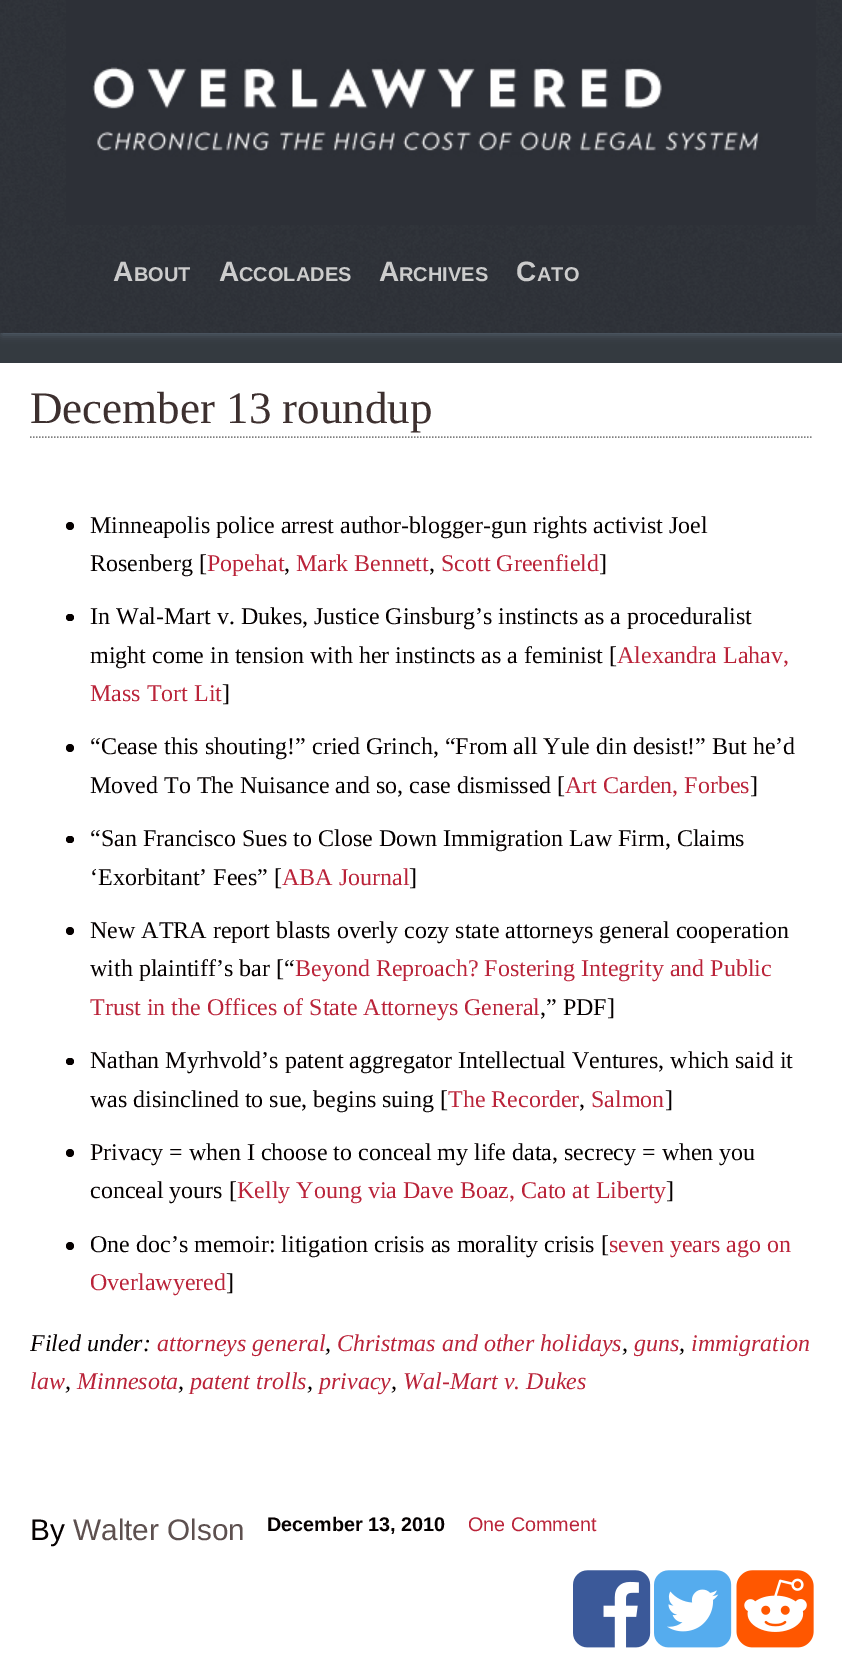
%!PS-Adobe-3.0
%%BoundingBox: 0 0 842 1666
%%LanguageLevel: 3
%%Pages: 1
%%EndComments
%%BeginProlog
/setink { dup -16 bitshift 255 div exch dup -8 bitshift 255 and 255 div exch 255 and 255 div setrgbcolor } def
/usefont { [ exch dup neg 0 0 3 -1 roll 0 0 ] selectfont } def
/setalpha { dup .setfillconstantalpha .setstrokeconstantalpha } def
/disc { newpath 0 360 arc closepath } def
/rrect { 5 dict begin { /r /h /w /y /x } { exch def } forall
  x r add y moveto x w add y 2 copy h add r arct x w add y h add x 1 index r arct
  x y h add x y r arct x y 2 copy exch w add exch r arct closepath end } def
/softshadow { 12 dict begin { /a /b /q /h /w /y /x } { exch def } forall gsave /was 0 def
  9 -2 -9 { dup b mul 4 div /e exch def 1 sub .425 mul 2.718 exch exp 1 add a .99 .min exch div /now exch def
    1 1 now sub 1 was sub div sub setalpha /was now def
    w h .min e 2 mul add 0 gt { x e sub y e sub w e 2 mul add h e 2 mul add
      q e add b .6 mul add w h .min 2 div e add .min 0 .max rrect fill } if } for grestore end } def
/drawimage { 5 dict begin { /h /w /y /x /name } { exch def } forall
  gsave x y translate w h scale
  w h 8 [w 0 0 h 0 0] name (r) file false 3 colorimage grestore end } def
%%EndProlog
%%BeginSetup
<< /PageSize [842 1666] /PageUsesTransparency true >> setpagedevice
%%EndSetup
%%Page: 1 1
0 .pushpdf14devicefilter
0 1666 translate 1 -1 scale
4 setmiterlimit
16#343A40 setink
0 0 842 1666 rectfill
16#535F6B setink
2 2 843 333 0 4 1 softshadow
(img1.raw) 0 0 842 333 drawimage
(img2.raw) 66 0 750 225 drawimage
/LiberationSans-Bold 28 usefont
16#CCCCCC setink
113 281 moveto (A) show
/LiberationSans-Bold 20 usefont
134 281 moveto (BOUT) show
/LiberationSans-Bold 28 usefont
219 281 moveto (A) show
/LiberationSans-Bold 20 usefont
239 281 moveto (CCOLADES) show
/LiberationSans-Bold 28 usefont
379 281 moveto (A) show
/LiberationSans-Bold 20 usefont
399 281 moveto (RCHIVES) show
/LiberationSans-Bold 28 usefont
516 281 moveto (C) show
/LiberationSans-Bold 20 usefont
537 281 moveto (ATO) show
16#FFFFFF setink
0 363 842 1303 rectfill
16#808080 setink
1.5 setlinewidth
[1.5 1.5] 0 setdash
30 437 moveto 813 437 lineto stroke
/LiberationSerif-Regular 45 usefont
16#3D302F setink
30 423 moveto (December 13 roundup) show
16#050000 setink
70 526 4 disc fill
/LiberationSerif-Regular 24 usefont
90 533 moveto (Minneapolis police arrest author-blogger-gun rights activist Joel) show
90 571 moveto (Rosenberg [) show
16#BA2339 setink
207 571 moveto (Popehat) show
16#050000 setink
284 571 moveto (,) show
16#BA2339 setink
296 571 moveto (Mark Bennett) show
16#050000 setink
429 571 moveto (,) show
16#BA2339 setink
441 571 moveto (Scott Greenfield) show
16#050000 setink
599 571 moveto (]) show
66 614 8 7 3.5 rrect fill
90 624 moveto (In Wal-Mart v. Dukes, Justice Ginsburg’s instincts as a proceduralist) show
90 663 moveto (might come in tension with her instincts as a feminist [) show
16#BA2339 setink
617 663 moveto (Alexandra Lahav,) show
90 701 moveto (Mass Tort Lit) show
16#050000 setink
222 701 moveto (]) show
70 748 4 disc fill
90 754 moveto (“Cease this shouting!” cried Grinch, “From all Yule din desist!” But he’d) show
90 793 moveto (Moved To The Nuisance and so, case dismissed [) show
16#BA2339 setink
565 793 moveto (Art Carden, Forbes) show
16#050000 setink
750 793 moveto (]) show
66 836 8 7 3.5 rrect fill
90 846 moveto (“San Francisco Sues to Close Down Immigration Law Firm, Claims) show
90 885 moveto (‘Exorbitant’ Fees” [) show
16#BA2339 setink
282 885 moveto (ABA Journal) show
16#050000 setink
409 885 moveto (]) show
70 931 4 disc fill
90 938 moveto (New ATRA report blasts overly cozy state attorneys general cooperation) show
90 976 moveto (with plaintiff’s bar [“) show
16#BA2339 setink
295 976 moveto (Beyond Reproach? Fostering Integrity and Public) show
90 1015 moveto (Trust in the Offices of State Attorneys General) show
16#050000 setink
540 1015 moveto (,” PDF]) show
66 1058 8 7 3.5 rrect fill
90 1068 moveto (Nathan Myrhvold’s patent aggregator Intellectual Ventures, which said it) show
90 1107 moveto (was disinclined to sue, begins suing [) show
16#BA2339 setink
448 1107 moveto (The Recorder) show
16#050000 setink
579 1107 moveto (,) show
16#BA2339 setink
591 1107 moveto (Salmon) show
16#050000 setink
665 1107 moveto (]) show
70 1153 4 disc fill
90 1160 moveto (Privacy = when I choose to conceal my life data, secrecy = when you) show
90 1198 moveto (conceal yours [) show
16#BA2339 setink
237 1198 moveto (Kelly Young via Dave Boaz, Cato at Liberty) show
16#050000 setink
666 1198 moveto (]) show
70 1246 4 disc fill
90 1252 moveto (One doc’s memoir: litigation crisis as morality crisis [) show
16#BA2339 setink
609 1252 moveto (seven years ago on) show
90 1290 moveto (Overlawyered) show
16#050000 setink
226 1290 moveto (]) show
/LiberationSerif-Italic 24 usefont
30 1351 moveto (Filed under:) show
16#BA2339 setink
157 1351 moveto (attorneys general) show
16#050000 setink
325 1351 moveto (,) show
16#BA2339 setink
337 1351 moveto (Christmas and other holidays) show
16#050000 setink
622 1351 moveto (,) show
16#BA2339 setink
634 1351 moveto (guns) show
16#050000 setink
679 1351 moveto (,) show
16#BA2339 setink
691 1351 moveto (immigration) show
30 1389 moveto (law) show
16#050000 setink
65 1389 moveto (,) show
16#BA2339 setink
77 1389 moveto (Minnesota) show
16#050000 setink
178 1389 moveto (,) show
16#BA2339 setink
190 1389 moveto (patent trolls) show
16#050000 setink
307 1389 moveto (,) show
16#BA2339 setink
319 1389 moveto (privacy) show
16#050000 setink
391 1389 moveto (,) show
16#BA2339 setink
403 1389 moveto (Wal-Mart v. Dukes) show
/LiberationSans-Regular 29.75 usefont
16#050000 setink
30 1540 moveto (By) show
16#5D504F setink
73 1540 moveto (Walter Olson) show
/LiberationSans-Bold 19.75 usefont
16#050000 setink
267 1531 moveto (December 13, 2010) show
/LiberationSans-Regular 19.75 usefont
16#BA2339 setink
468 1531 moveto (One Comment) show
(img3.raw) 573 1570 78 78 drawimage
(img4.raw) 654 1570 78 78 drawimage
(img5.raw) 736 1570 78 78 drawimage
.poppdf14devicefilter showpage
%%EOF
